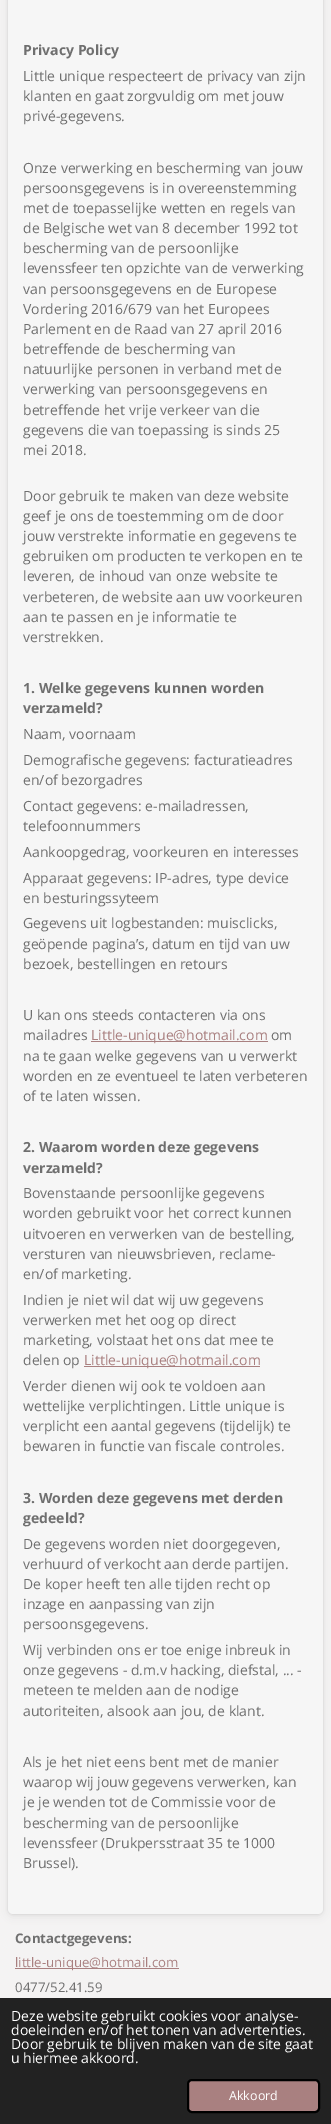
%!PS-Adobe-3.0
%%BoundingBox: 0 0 331 2124
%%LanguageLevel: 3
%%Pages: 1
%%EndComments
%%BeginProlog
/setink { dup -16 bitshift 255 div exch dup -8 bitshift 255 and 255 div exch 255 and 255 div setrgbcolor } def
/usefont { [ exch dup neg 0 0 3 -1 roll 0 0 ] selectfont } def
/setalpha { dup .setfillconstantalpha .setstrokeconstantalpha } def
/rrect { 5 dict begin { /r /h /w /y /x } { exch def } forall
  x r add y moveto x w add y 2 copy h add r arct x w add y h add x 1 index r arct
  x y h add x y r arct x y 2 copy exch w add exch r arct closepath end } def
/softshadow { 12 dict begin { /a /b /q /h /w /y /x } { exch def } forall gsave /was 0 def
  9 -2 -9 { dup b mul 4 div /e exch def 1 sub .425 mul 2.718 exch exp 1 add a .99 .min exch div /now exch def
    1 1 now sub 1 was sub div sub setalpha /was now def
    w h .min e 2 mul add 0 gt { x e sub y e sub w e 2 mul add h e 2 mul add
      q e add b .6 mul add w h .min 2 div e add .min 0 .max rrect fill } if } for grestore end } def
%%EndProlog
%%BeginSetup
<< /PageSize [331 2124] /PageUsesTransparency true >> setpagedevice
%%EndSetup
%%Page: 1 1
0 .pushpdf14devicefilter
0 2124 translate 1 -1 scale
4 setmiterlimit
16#F4F3F3 setink
0 0 331 2124 rectfill
16#000000 setink
8 -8 315 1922 5 1 0.1 softshadow
8 -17 315 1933 5 4 0.07 softshadow
16#F6F6F6 setink
8 -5 315 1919 5 rrect fill
/OpenSans-Bold 14 usefont
16#6F6F6F setink
23 55 moveto (Privacy Policy) show
/OpenSans-Regular 14 usefont
[
    [(Little unique respecteert de privacy van zijn) 23 81]
    [(klanten en gaat zorgvuldig om met jouw) 23 101]
    [(privé-gegevens.) 23 121]
    [(Onze verwerking en bescherming van jouw) 23 173]
    [(persoonsgegevens is in overeenstemming) 23 193]
    [(met de toepasselijke wetten en regels van) 23 213]
    [(de Belgische wet van 8 december 1992 tot) 23 233]
    [(bescherming van de persoonlijke) 23 253]
    [(levenssfeer ten opzichte van de verwerking) 23 273]
    [(van persoonsgegevens en de Europese) 23 294]
    [(Vordering 2016/679 van het Europees) 23 314]
    [(Parlement en de Raad van 27 april 2016) 23 334]
    [(betreffende de bescherming van) 23 354]
    [(natuurlijke personen in verband met de) 23 374]
    [(verwerking van persoonsgegevens en) 23 394]
    [(betreffende het vrije verkeer van die) 23 415]
    [(gegevens die van toepassing is sinds 25) 23 435]
    [(mei 2018.) 23 455]
    [(Door gebruik te maken van deze website) 23 501]
    [(geef je ons de toestemming om de door) 23 521]
    [(jouw verstrekte informatie en gegevens te) 23 541]
    [(gebruiken om producten te verkopen en te) 23 561]
    [(leveren, de inhoud van onze website te) 23 581]
    [(verbeteren, de website aan uw voorkeuren) 23 602]
    [(aan te passen en je informatie te) 23 622]
    [(verstrekken.) 23 642]
] { aload pop moveto show } forall
/OpenSans-Bold 14 usefont
23 693 moveto (1. Welke gegevens kunnen worden) show
23 713 moveto (verzameld?) show
/OpenSans-Regular 14 usefont
[
    [(Naam, voornaam) 23 739]
    [(Demografische gegevens: facturatieadres) 23 765]
    [(en/of bezorgadres) 23 785]
    [(Contact gegevens: e-mailadressen,) 23 811]
    [(telefoonnummers) 23 831]
    [(Aankoopgedrag, voorkeuren en interesses) 23 857]
    [(Apparaat gegevens: IP-adres, type device) 23 883]
    [(en besturingssyteem) 23 903]
    [(Gegevens uit logbestanden: muisclicks,) 23 928]
    [(geöpende pagina’s, datum en tijd van uw) 23 949]
    [(bezoek, bestellingen en retours) 23 969]
    [(U kan ons steeds contacteren via ons) 23 1020]
    [(mailadres) 23 1040]
] { aload pop moveto show } forall
16#A98080 setink
91 1041 177 1 rectfill
91 1040 moveto (Little-unique@hotmail.com) show
16#6F6F6F setink
[
    [(om) 271 1040]
    [(na te gaan welke gegevens van u verwerkt) 23 1061]
    [(worden en ze eventueel te laten verbeteren) 23 1081]
    [(of te laten wissen.) 23 1101]
] { aload pop moveto show } forall
/OpenSans-Bold 14 usefont
23 1152 moveto (2. Waarom worden deze gegevens) show
23 1173 moveto (verzameld?) show
/OpenSans-Regular 14 usefont
[
    [(Bovenstaande persoonlijke gegevens) 23 1198]
    [(worden gebruikt voor het correct kunnen) 23 1218]
    [(uitvoeren en verwerken van de bestelling,) 23 1239]
    [(versturen van nieuwsbrieven, reclame-) 23 1259]
    [(en/of marketing.) 23 1279]
    [(Indien je niet wil dat wij uw gegevens) 23 1305]
    [(verwerken met het oog op direct) 23 1325]
    [(marketing, volstaat het ons dat mee te) 23 1345]
    [(delen op) 23 1365]
] { aload pop moveto show } forall
16#A98080 setink
84 1366 176 1 rectfill
84 1365 moveto (Little-unique@hotmail.com) show
16#6F6F6F setink
[
    [(Verder dienen wij ook te voldoen aan) 23 1391]
    [(wettelijke verplichtingen. Little unique is) 23 1411]
    [(verplicht een aantal gegevens \(tijdelijk\) te) 23 1431]
    [(bewaren in functie van fiscale controles.) 23 1451]
] { aload pop moveto show } forall
/OpenSans-Bold 14 usefont
23 1503 moveto (3. Worden deze gegevens met derden) show
23 1523 moveto (gedeeld?) show
/OpenSans-Regular 14 usefont
[
    [(De gegevens worden niet doorgegeven,) 23 1549]
    [(verhuurd of verkocht aan derde partijen.) 23 1569]
    [(De koper heeft ten alle tijden recht op) 23 1589]
    [(inzage en aanpassing van zijn) 23 1609]
    [(persoonsgegevens.) 23 1629]
    [(Wij verbinden ons er toe enige inbreuk in) 23 1655]
    [(onze gegevens - d.m.v hacking, diefstal, ... -) 23 1675]
    [(meteen te melden aan de nodige) 23 1695]
    [(autoriteiten, alsook aan jou, de klant.) 23 1716]
    [(Als je het niet eens bent met de manier) 23 1767]
    [(waarop wij jouw gegevens verwerken, kan) 23 1787]
    [(je je wenden tot de Commissie voor de) 23 1807]
    [(bescherming van de persoonlijke) 23 1828]
    [(levenssfeer \(Drukpersstraat 35 te 1000) 23 1848]
    [(Brussel\).) 23 1868]
] { aload pop moveto show } forall
/OpenSans-Bold 13.25 usefont
15 1943 moveto (Contactgegevens:) show
16#A98080 setink
15 1968 164 1 rectfill
/OpenSans-Regular 13.25 usefont
15 1967 moveto (little-unique@hotmail.com) show
16#6F6F6F setink
15 1992 moveto (0477/52.41.59) show
16#222222 setink
0 1998 331 126 rectfill
/OpenSans-Regular 14 usefont
16#FFFFFF setink
[
    [(Deze website gebruikt cookies voor analyse-) 11 2021]
    [(doeleinden en/of het tonen van advertenties.) 11 2035]
    [(Door gebruik te blijven maken van de site gaat) 11 2049]
    [(u hiermee akkoord.) 11 2063]
] { aload pop moveto show } forall
16#A98080 setink
188 2080 131 32 4 rrect gsave fill grestore
16#000000 setink
2 setlinewidth
stroke
/OpenSans-Regular 12.5 usefont
16#FFFFFF setink
229 2100 moveto (Akkoord) show
.poppdf14devicefilter showpage
%%EOF
